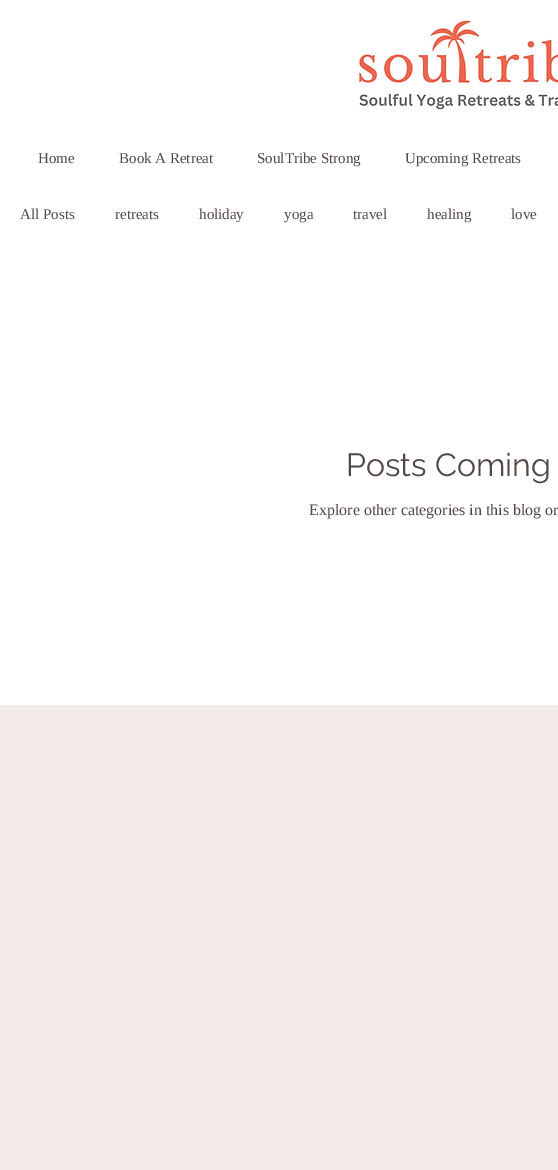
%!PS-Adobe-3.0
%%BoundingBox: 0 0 558 1170
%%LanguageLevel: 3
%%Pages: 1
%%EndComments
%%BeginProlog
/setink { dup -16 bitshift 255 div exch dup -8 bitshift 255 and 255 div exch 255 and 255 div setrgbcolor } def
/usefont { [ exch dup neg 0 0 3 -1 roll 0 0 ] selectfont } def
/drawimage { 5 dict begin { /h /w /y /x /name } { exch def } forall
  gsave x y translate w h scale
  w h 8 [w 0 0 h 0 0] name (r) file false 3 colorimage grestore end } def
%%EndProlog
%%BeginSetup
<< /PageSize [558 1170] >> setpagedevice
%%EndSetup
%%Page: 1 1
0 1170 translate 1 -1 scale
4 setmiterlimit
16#F1EAE8 setink
0 0 558 1170 rectfill
16#FFFFFF setink
0 0 558 705 rectfill
(img1.raw) 359 20 199 90 drawimage
/LiberationSerif-Regular 15 usefont
16#534745 setink
[
    [(Home) 38 163]
    [(Book A Retreat) 119 163]
    [(SoulTribe Strong) 257 163]
    [(Upcoming Retreats) 405 163]
    [(All Posts) 20 219]
    [(retreats) 115 219]
    [(holiday) 199 219]
    [(yoga) 284 219]
    [(travel) 353 219]
    [(healing) 427 219]
    [(love) 511 219]
] { aload pop moveto show } forall
/Raleway-Regular 32 usefont
346 476 moveto (Posts Coming) show
/LiberationSerif-Regular 16 usefont
309 515 moveto (Explore other categories in this blog or) show
showpage
%%EOF
